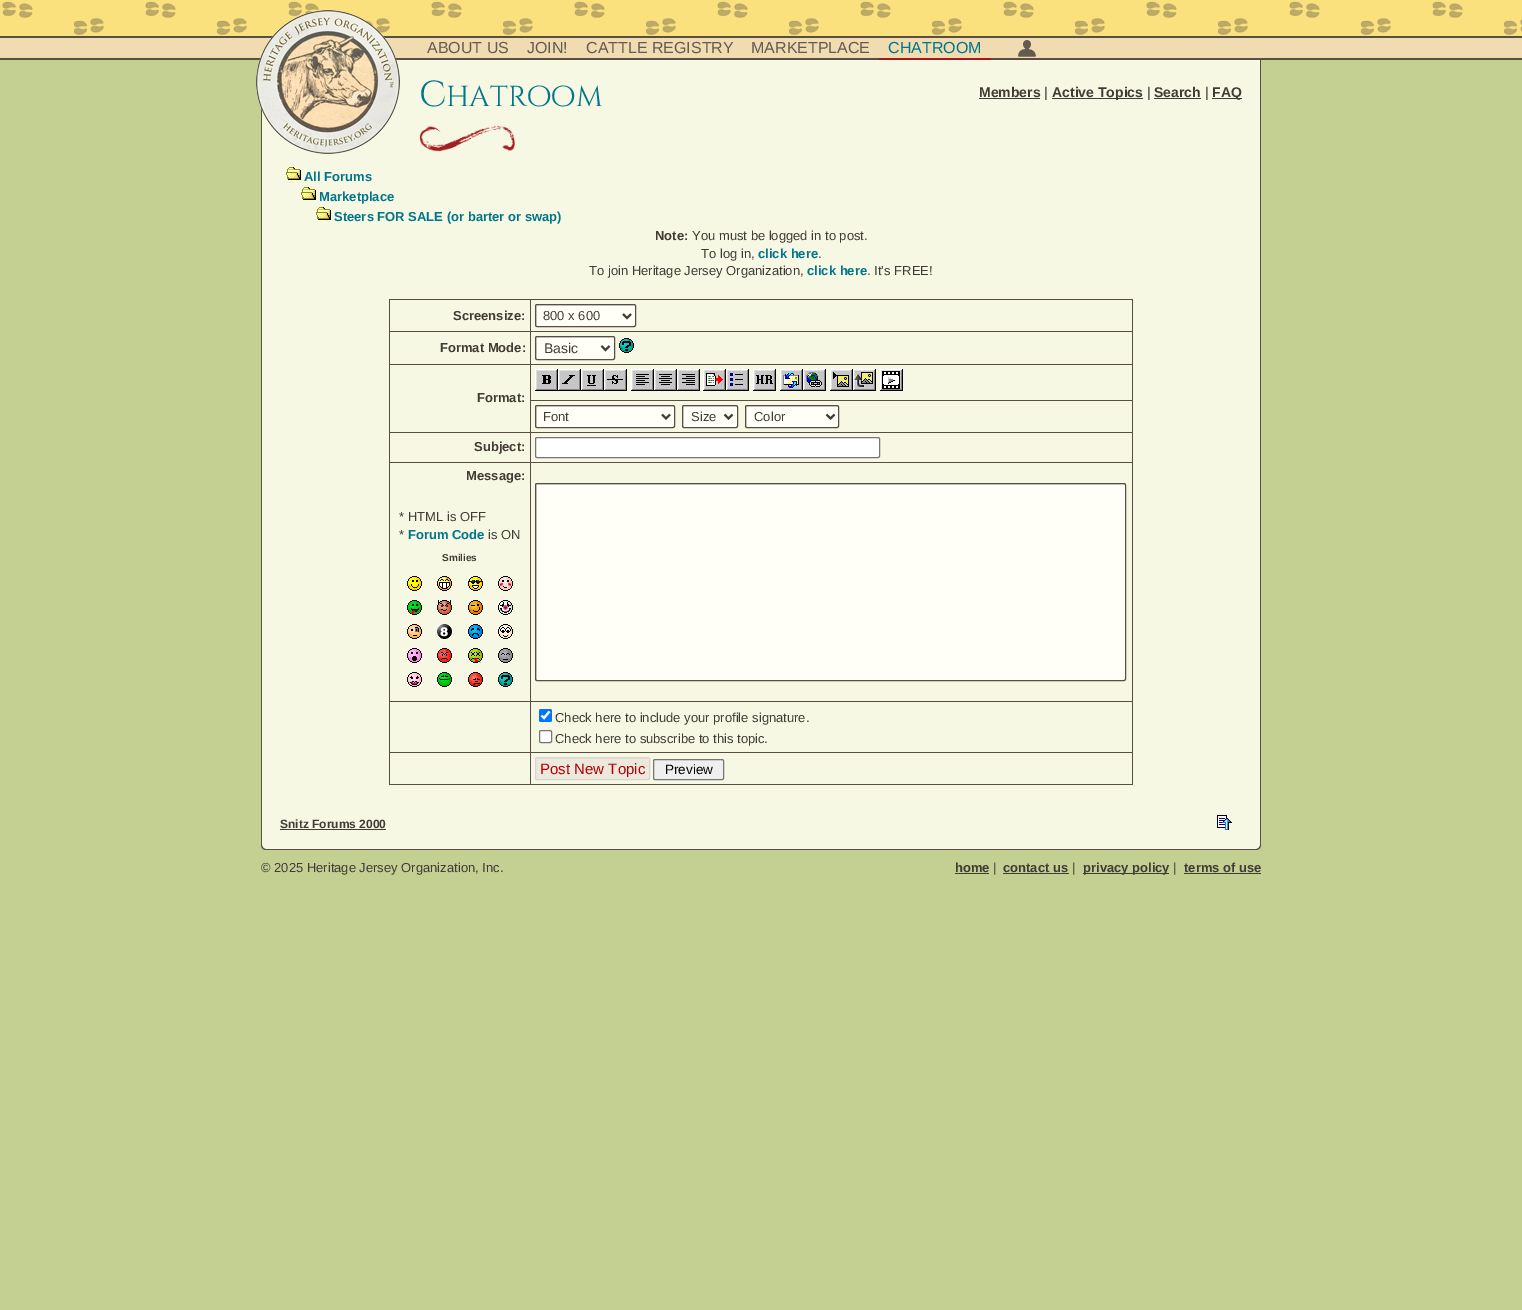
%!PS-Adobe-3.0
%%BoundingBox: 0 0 1522 1310
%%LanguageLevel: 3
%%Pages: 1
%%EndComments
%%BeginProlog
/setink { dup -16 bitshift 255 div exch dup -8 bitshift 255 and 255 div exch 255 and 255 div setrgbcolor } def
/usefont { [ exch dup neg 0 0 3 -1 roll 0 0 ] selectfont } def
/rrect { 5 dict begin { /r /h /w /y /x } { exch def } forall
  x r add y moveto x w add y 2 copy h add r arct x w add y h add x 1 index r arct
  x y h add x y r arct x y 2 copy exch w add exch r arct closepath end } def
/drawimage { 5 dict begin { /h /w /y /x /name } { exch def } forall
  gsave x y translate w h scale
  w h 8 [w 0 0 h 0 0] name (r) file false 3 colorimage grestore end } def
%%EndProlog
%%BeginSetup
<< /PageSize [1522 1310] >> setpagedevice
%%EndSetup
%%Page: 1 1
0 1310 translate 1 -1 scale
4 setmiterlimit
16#C4CF92 setink
0 0 1522 1310 rectfill
16#FBE17E setink
0 0 1522 36 rectfill
(img1.raw) 2 1 1520 34 drawimage
[
    [0 38 1522 20 16#F1DCB2]
    [0 36 1522 2 16#584E44]
    [0 58 1522 2 16#584E44]
] { aload pop setink rectfill } forall
16#F7F8E3 setink
261 60 moveto 1261 60 lineto 1261 845 lineto 1261 848 1259 850 1256 850 curveto 266 850 lineto 263 850 261 848 261 845 curveto closepath fill
16#584E44 setink
261 60 moveto 1261 60 lineto 1261 845 lineto 1261 848 1259 850 1256 850 curveto 266 850 lineto 263 850 261 848 261 845 curveto closepath 262 60 moveto 1260 60 lineto 1260 845 lineto 1260 847 1258 849 1256 849 curveto 266 849 lineto 264 849 262 847 262 845 curveto closepath eofill
(img2.raw) 256 10 144 144 drawimage
/LiberationSans-Regular 16 usefont
16#635A52 setink
[
    [(ABOUT US) 427 53]
    [(JOIN!) 527 53]
    [(CATTLE REGISTRY) 586 53]
    [(MARKETPLACE) 751 53]
] { aload pop moveto show } forall
16#A3181C setink
879 58 112 2 rectfill
16#00768B setink
888 53 moveto (CHATROOM) show
(img3.raw) 1018 40 18 17 drawimage
/CinzelDecorative-Regular 36 usefont
419 106 moveto (c) show
/CinzelDecorative-Regular 28.75 usefont
446 106 moveto (hatroom) show
/LiberationSans-Bold 14 usefont
16#413B36 setink
979 97 moveto (Members) show
979 98 61 1 rectfill
/LiberationSans-Regular 14 usefont
1044 97 moveto (|) show
1052 98 91 1 rectfill
/LiberationSans-Bold 14 usefont
1052 97 moveto (Active Topics) show
/LiberationSans-Regular 14 usefont
1147 97 moveto (|) show
/LiberationSans-Bold 14 usefont
1154 97 moveto (Search) show
1154 98 47 1 rectfill
/LiberationSans-Regular 14 usefont
1205 97 moveto (|) show
1212 98 30 1 rectfill
/LiberationSans-Bold 14 usefont
1212 97 moveto (FAQ) show
(img4.raw) 419 125 96 27 drawimage
(img5.raw) 286 167 15 13 drawimage
/LiberationSans-Bold 13 usefont
16#00768B setink
304 181 moveto (All Forums) show
(img5.raw) 301 187 15 13 drawimage
319 201 moveto (Marketplace) show
(img5.raw) 316 207 15 13 drawimage
334 221 moveto (Steers FOR SALE \(or barter or swap\)) show
16#413B36 setink
655 240 moveto (Note:) show
/LiberationSans-Regular 13 usefont
692 240 moveto (You must be logged in to post.) show
701 258 moveto (To log in,) show
/LiberationSans-Bold 13 usefont
16#00768B setink
758 258 moveto (click here) show
/LiberationSans-Regular 13 usefont
16#413B36 setink
818 258 moveto (.) show
589 275 moveto (To join Heritage Jersey Organization,) show
/LiberationSans-Bold 13 usefont
16#00768B setink
807 275 moveto (click here) show
/LiberationSans-Regular 13 usefont
16#413B36 setink
867 275 moveto (. It’s FREE!) show
16#584E44 setink
389 299 744 486 rectfill
16#F7F8E3 setink
390 300 140 31 rectfill
/LiberationSans-Bold 13 usefont
16#413B36 setink
453 320 moveto (Screensize:) show
16#F7F8E3 setink
531 300 601 31 rectfill
16#FFFFF8 setink
535 304 101 23 2 rrect fill
16#E6E6DF setink
538 306 moveto 635 306 lineto 634 305 lineto 553 305 lineto 534 305 536 300 536 316 curveto 536 317 535 326 537 326 curveto 537 307 lineto closepath fill
16#584E44 setink
535.5 304.5 100 22 1.5 rrect stroke
16#413B36 setink
2 setlinewidth
623 314 moveto 627 318 lineto 631 314 lineto stroke
/LiberationSans-Regular 13 usefont
543 320 moveto (800 x 600) show
16#F7F8E3 setink
390 332 140 32 rectfill
/LiberationSans-Bold 13 usefont
16#413B36 setink
440 352 moveto (Format Mode:) show
16#F7F8E3 setink
531 332 601 32 rectfill
16#FFFFF8 setink
535 336 80 24 2 rrect fill
16#E6E6DF setink
538 338 moveto 614 338 lineto 613 337 lineto 537 337 lineto 535 337 536 341 536 341 curveto 536 344 535 359 537 359 curveto 537 338 lineto closepath fill
16#584E44 setink
1 setlinewidth
535.5 336.5 79 23 1.5 rrect stroke
16#413B36 setink
2 setlinewidth
601.5 346 moveto 605.5 350 lineto 609.5 346 lineto stroke
/LiberationSans-Regular 14 usefont
544 353 moveto (Basic) show
(img6.raw) 619 338 15 15 drawimage
16#F7F8E3 setink
390 365 140 67 rectfill
/LiberationSans-Bold 13 usefont
16#413B36 setink
477 402 moveto (Format:) show
16#F7F8E3 setink
531 365 601 35 rectfill
(img7.raw) 535 369 23 22 drawimage
(img8.raw) 558 369 23 22 drawimage
(img9.raw) 581 369 23 22 drawimage
(img10.raw) 604 369 23 22 drawimage
(img11.raw) 631 369 23 22 drawimage
(img12.raw) 654 369 23 22 drawimage
(img13.raw) 677 369 23 22 drawimage
(img14.raw) 703 369 23 22 drawimage
(img15.raw) 726 369 23 22 drawimage
(img16.raw) 753 369 23 22 drawimage
(img17.raw) 780 369 23 22 drawimage
(img18.raw) 803 369 23 22 drawimage
(img19.raw) 830 369 23 22 drawimage
(img20.raw) 853 369 23 22 drawimage
(img21.raw) 880 369 23 22 drawimage
531 401 601 31 rectfill
16#FFFFF8 setink
535 405 140 23 2 rrect fill
16#E6E6DF setink
538 407 moveto 674 407 lineto 673 406 lineto 537 406 lineto 536 407 lineto 536 411 535 427 537 427 curveto 537 408 lineto closepath fill
16#584E44 setink
1 setlinewidth
535.5 405.5 139 22 1.5 rrect stroke
16#413B36 setink
2 setlinewidth
662 414.5 moveto 666 418.5 lineto 670 414.5 lineto stroke
/LiberationSans-Regular 13 usefont
543 421 moveto (Font) show
16#FFFFF8 setink
682 405 56 23 2 rrect fill
16#E6E6DF setink
685 407 moveto 737 407 lineto 737 406 737 406 736 406 curveto 684 406 lineto 683 406 683 406 683 407 curveto 683 426 lineto 683 427 683 427 684 427 curveto 683 424 684 408 684 407 curveto closepath fill
16#584E44 setink
1 setlinewidth
682.5 405.5 55 22 1.5 rrect stroke
16#413B36 setink
2 setlinewidth
724.5 414.5 moveto 728.5 418.5 lineto 732.5 414.5 lineto stroke
691 421 moveto (Size) show
16#FFFFF8 setink
745 405 94 23 2 rrect fill
16#E6E6DF setink
748 407 moveto 838 407 lineto 838 406 lineto 747 406 lineto 745 406 746 410 746 410 curveto 746 413 745 427 747 427 curveto 747 408 lineto closepath fill
16#584E44 setink
1 setlinewidth
745.5 405.5 93 22 1.5 rrect stroke
16#413B36 setink
2 setlinewidth
826.5 414.5 moveto 830.5 418.5 lineto 834.5 414.5 lineto stroke
754 421 moveto (Color) show
16#F7F8E3 setink
390 433 140 29 rectfill
/LiberationSans-Bold 13 usefont
16#413B36 setink
474 451 moveto (Subject:) show
16#F7F8E3 setink
531 433 601 29 rectfill
16#FFFFFF setink
535.5 437.5 344 20 1.5 rrect gsave fill grestore
16#767676 setink
1 setlinewidth
stroke
16#F7F8E3 setink
390 463 140 238 rectfill
16#413B36 setink
466 480 moveto (Message:) show
/LiberationSans-Regular 13 usefont
399 521 moveto (* HTML is OFF) show
399 539 moveto (*) show
/LiberationSans-Bold 13 usefont
16#00768B setink
408 539 moveto (Forum Code) show
/LiberationSans-Regular 13 usefont
16#413B36 setink
488 539 moveto (is ON) show
/LiberationSans-Bold 10 usefont
442 561 moveto (Smilies) show
(img22.raw) 407 576 15 15 drawimage
(img23.raw) 437 576 15 15 drawimage
(img24.raw) 468 576 15 15 drawimage
(img25.raw) 498 576 15 15 drawimage
(img26.raw) 407 600 15 15 drawimage
(img27.raw) 437 600 15 15 drawimage
(img28.raw) 468 600 15 15 drawimage
(img29.raw) 498 600 15 15 drawimage
(img30.raw) 407 624 15 15 drawimage
(img31.raw) 437 624 15 15 drawimage
(img32.raw) 468 624 15 15 drawimage
(img33.raw) 498 624 15 15 drawimage
(img34.raw) 407 648 15 15 drawimage
(img35.raw) 437 648 15 15 drawimage
(img36.raw) 468 648 15 15 drawimage
(img37.raw) 498 648 15 15 drawimage
(img38.raw) 407 672 15 15 drawimage
(img39.raw) 437 672 15 15 drawimage
(img40.raw) 468 672 15 15 drawimage
(img6.raw) 498 672 15 15 drawimage
16#F7F8E3 setink
531 463 601 238 rectfill
16#FFFFF8 setink
535 483 591 198 2 rrect fill
16#E6E6DF setink
538 485 moveto 1125 485 lineto 1125 484 1125 484 1124 484 curveto 537 484 lineto 536 484 536 484 536 485 curveto 536 679 lineto 536 680 536 680 537 680 curveto 537 485 lineto closepath fill
16#584E44 setink
535.5 483.5 590 197 1.5 rrect stroke
16#F7F8E3 setink
390 702 140 50 rectfill
531 702 601 50 rectfill
16#0075FF setink
539 709 13 13 2 rrect fill
16#FFFFFF setink
2.1 setlinewidth
541.5 715.5 moveto 544 718 lineto 549.5 711.5 lineto stroke
/LiberationSans-Regular 13 usefont
16#413B36 setink
555 722 moveto (Check here to include your profile signature.) show
16#FFFFFF setink
539.5 730.5 12 12 1.5 rrect gsave fill grestore
16#767676 setink
1 setlinewidth
stroke
16#413B36 setink
555 743 moveto (Check here to subscribe to this topic.) show
16#F7F8E3 setink
390 753 140 31 rectfill
531 753 601 31 rectfill
16#EBE8DE setink
535.5 757.5 114 22 1.5 rrect gsave fill grestore
16#D9D6CD setink
stroke
/LiberationSans-Regular 15 usefont
16#B40000 setink
540 774 moveto (Post New Topic) show
16#EFEFEF setink
653.5 759.5 70 20 1.5 rrect gsave fill grestore
16#767676 setink
stroke
/LiberationSans-Regular 13.5 usefont
16#000000 setink
665 774 moveto (Preview) show
/LiberationSans-Bold 12 usefont
16#413B36 setink
280 828 moveto (Snitz Forums 2000) show
280 829 106 1 rectfill
(img41.raw) 1217 815 15 15 drawimage
/LiberationSans-Regular 13 usefont
261 872 moveto (© 2025 Heritage Jersey Organization, Inc.) show
/LiberationSans-Bold 13 usefont
955 872 moveto (home) show
955 873 34 1 rectfill
/LiberationSans-Regular 13 usefont
993 872 moveto (|) show
/LiberationSans-Bold 13 usefont
1003 872 moveto (contact us) show
1003 873 66 1 rectfill
/LiberationSans-Regular 13 usefont
1072 872 moveto (|) show
1083 873 86 1 rectfill
/LiberationSans-Bold 13 usefont
1083 872 moveto (privacy policy) show
/LiberationSans-Regular 13 usefont
1173 872 moveto (|) show
/LiberationSans-Bold 13 usefont
1184 872 moveto (terms of use) show
1184 873 77 1 rectfill
showpage
%%EOF
